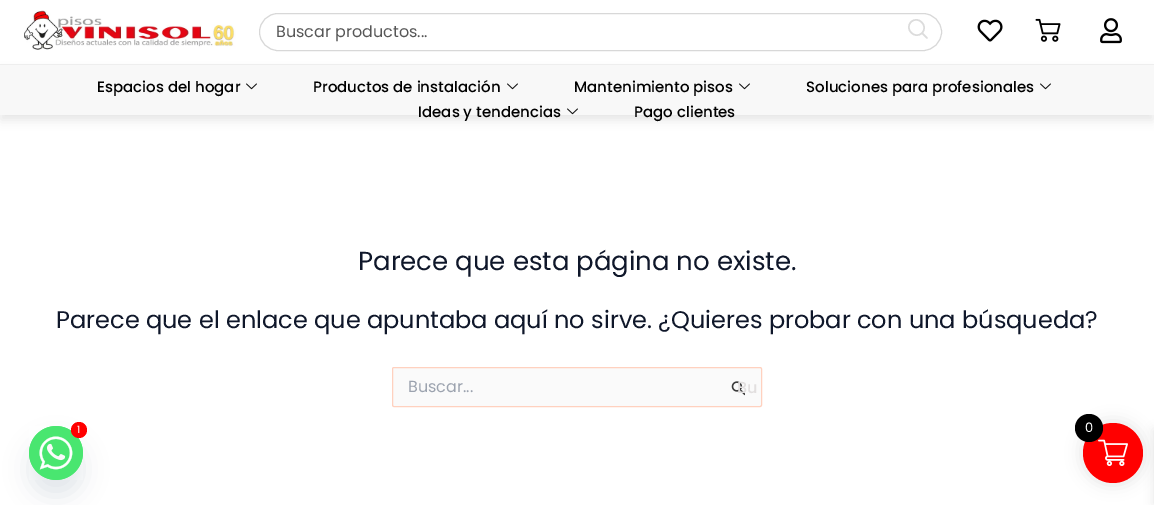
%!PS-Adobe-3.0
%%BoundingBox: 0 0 1154 505
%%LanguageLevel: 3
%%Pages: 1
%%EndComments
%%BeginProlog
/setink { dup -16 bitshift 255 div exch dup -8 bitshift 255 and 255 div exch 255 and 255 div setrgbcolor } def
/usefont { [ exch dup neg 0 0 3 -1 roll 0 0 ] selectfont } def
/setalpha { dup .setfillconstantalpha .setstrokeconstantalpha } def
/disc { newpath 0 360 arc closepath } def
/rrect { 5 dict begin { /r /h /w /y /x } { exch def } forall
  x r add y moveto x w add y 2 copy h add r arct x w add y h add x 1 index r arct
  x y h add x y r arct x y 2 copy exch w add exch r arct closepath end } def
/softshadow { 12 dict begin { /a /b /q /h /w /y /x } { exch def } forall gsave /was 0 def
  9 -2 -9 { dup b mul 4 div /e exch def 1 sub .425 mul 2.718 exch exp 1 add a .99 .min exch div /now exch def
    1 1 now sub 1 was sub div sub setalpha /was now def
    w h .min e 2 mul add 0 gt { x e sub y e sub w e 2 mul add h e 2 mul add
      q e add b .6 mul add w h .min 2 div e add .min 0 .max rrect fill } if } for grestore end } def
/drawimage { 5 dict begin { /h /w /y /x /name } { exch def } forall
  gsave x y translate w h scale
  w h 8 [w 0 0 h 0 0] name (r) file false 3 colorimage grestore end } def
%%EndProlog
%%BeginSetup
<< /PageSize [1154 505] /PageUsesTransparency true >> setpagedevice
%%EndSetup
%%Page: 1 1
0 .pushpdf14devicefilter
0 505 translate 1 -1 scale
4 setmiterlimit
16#FFFFFF setink
0 0 1154 505 rectfill
16#F0F0F0 setink
0 64 1154 1 rectfill
(img1.raw) 24 10 212 40 drawimage
16#D8D8D8 setink
259.5 13.5 682 37 18.5 rrect stroke
/Poppins-Regular 16 usefont
16#575757 setink
276 37 moveto (Buscar productos...) show
16#DCDCDC setink
1.5 setlinewidth
1 setlinecap
1 setlinejoin
927 38 moveto 922 33 lineto 922 33 moveto 929 26 918 15 911 22 curveto 904 29 915 40 922 33 curveto closepath stroke
(img2.raw) 977 19 26 23 drawimage
(img3.raw) 1035 18 26 24 drawimage
(img4.raw) 1100 18 22 26 drawimage
16#000000 setink
1 72 1152 48 0 5 0.1 softshadow
16#F8F8F8 setink
0 65 1154 50 rectfill
/Poppins-Medium 15 usefont
16#000000 setink
97 92 moveto (Espacios del hogar) show
(img5.raw) 246 83 11 7 drawimage
313 92 moveto (Productos de instalación) show
(img5.raw) 507 83 11 7 drawimage
574 92 moveto (Mantenimiento pisos) show
(img5.raw) 739 83 11 7 drawimage
806 92 moveto (Soluciones para profesionales) show
(img5.raw) 1040 83 11 7 drawimage
418 117 moveto (Ideas y tendencias) show
(img5.raw) 567 108 11 7 drawimage
634 117 moveto (Pago clientes) show
/Poppins-Regular 26 usefont
16#0F172A setink
358 270 moveto (Parece que esta página no existe.) show
/Poppins-Regular 24 usefont
56 328 moveto (Parece que el enlace que apuntaba aquí no sirve. ¿Quieres probar con una búsqueda?) show
16#FAFAFA setink
392.5 367.5 369 39 1.5 rrect gsave fill grestore
16#FFD1BF setink
1 setlinewidth
0 setlinecap
0 setlinejoin
stroke
/Poppins-Regular 16 usefont
16#9CA3AF setink
408 392 moveto (Buscar...) show
(img6.raw) 731 381 14 15 drawimage
/Poppins-Medium 16 usefont
16#E2DFDF setink
737 393 moveto (Bu) show
16#49687E setink
29 442 54 54 27 12 0.16 softshadow
(img7.raw) 29 426 54 54 drawimage
16#FF0000 setink
79 430 8 disc fill
/Poppins-Regular 10 usefont
16#FFFFFF setink
77 433 moveto (1) show
16#000000 setink
1081 421 64 64 32 7.5 0.1 softshadow
1154 430 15 74 0 5 0.1 softshadow
16#FF0000 setink
1113 453 30 disc fill
(img8.raw) 1098 439 30 27 drawimage
16#000000 setink
1089 428 14 disc fill
/Poppins-Regular 13 usefont
16#FFFFFF setink
1085 432 moveto (0) show
.poppdf14devicefilter showpage
%%EOF
